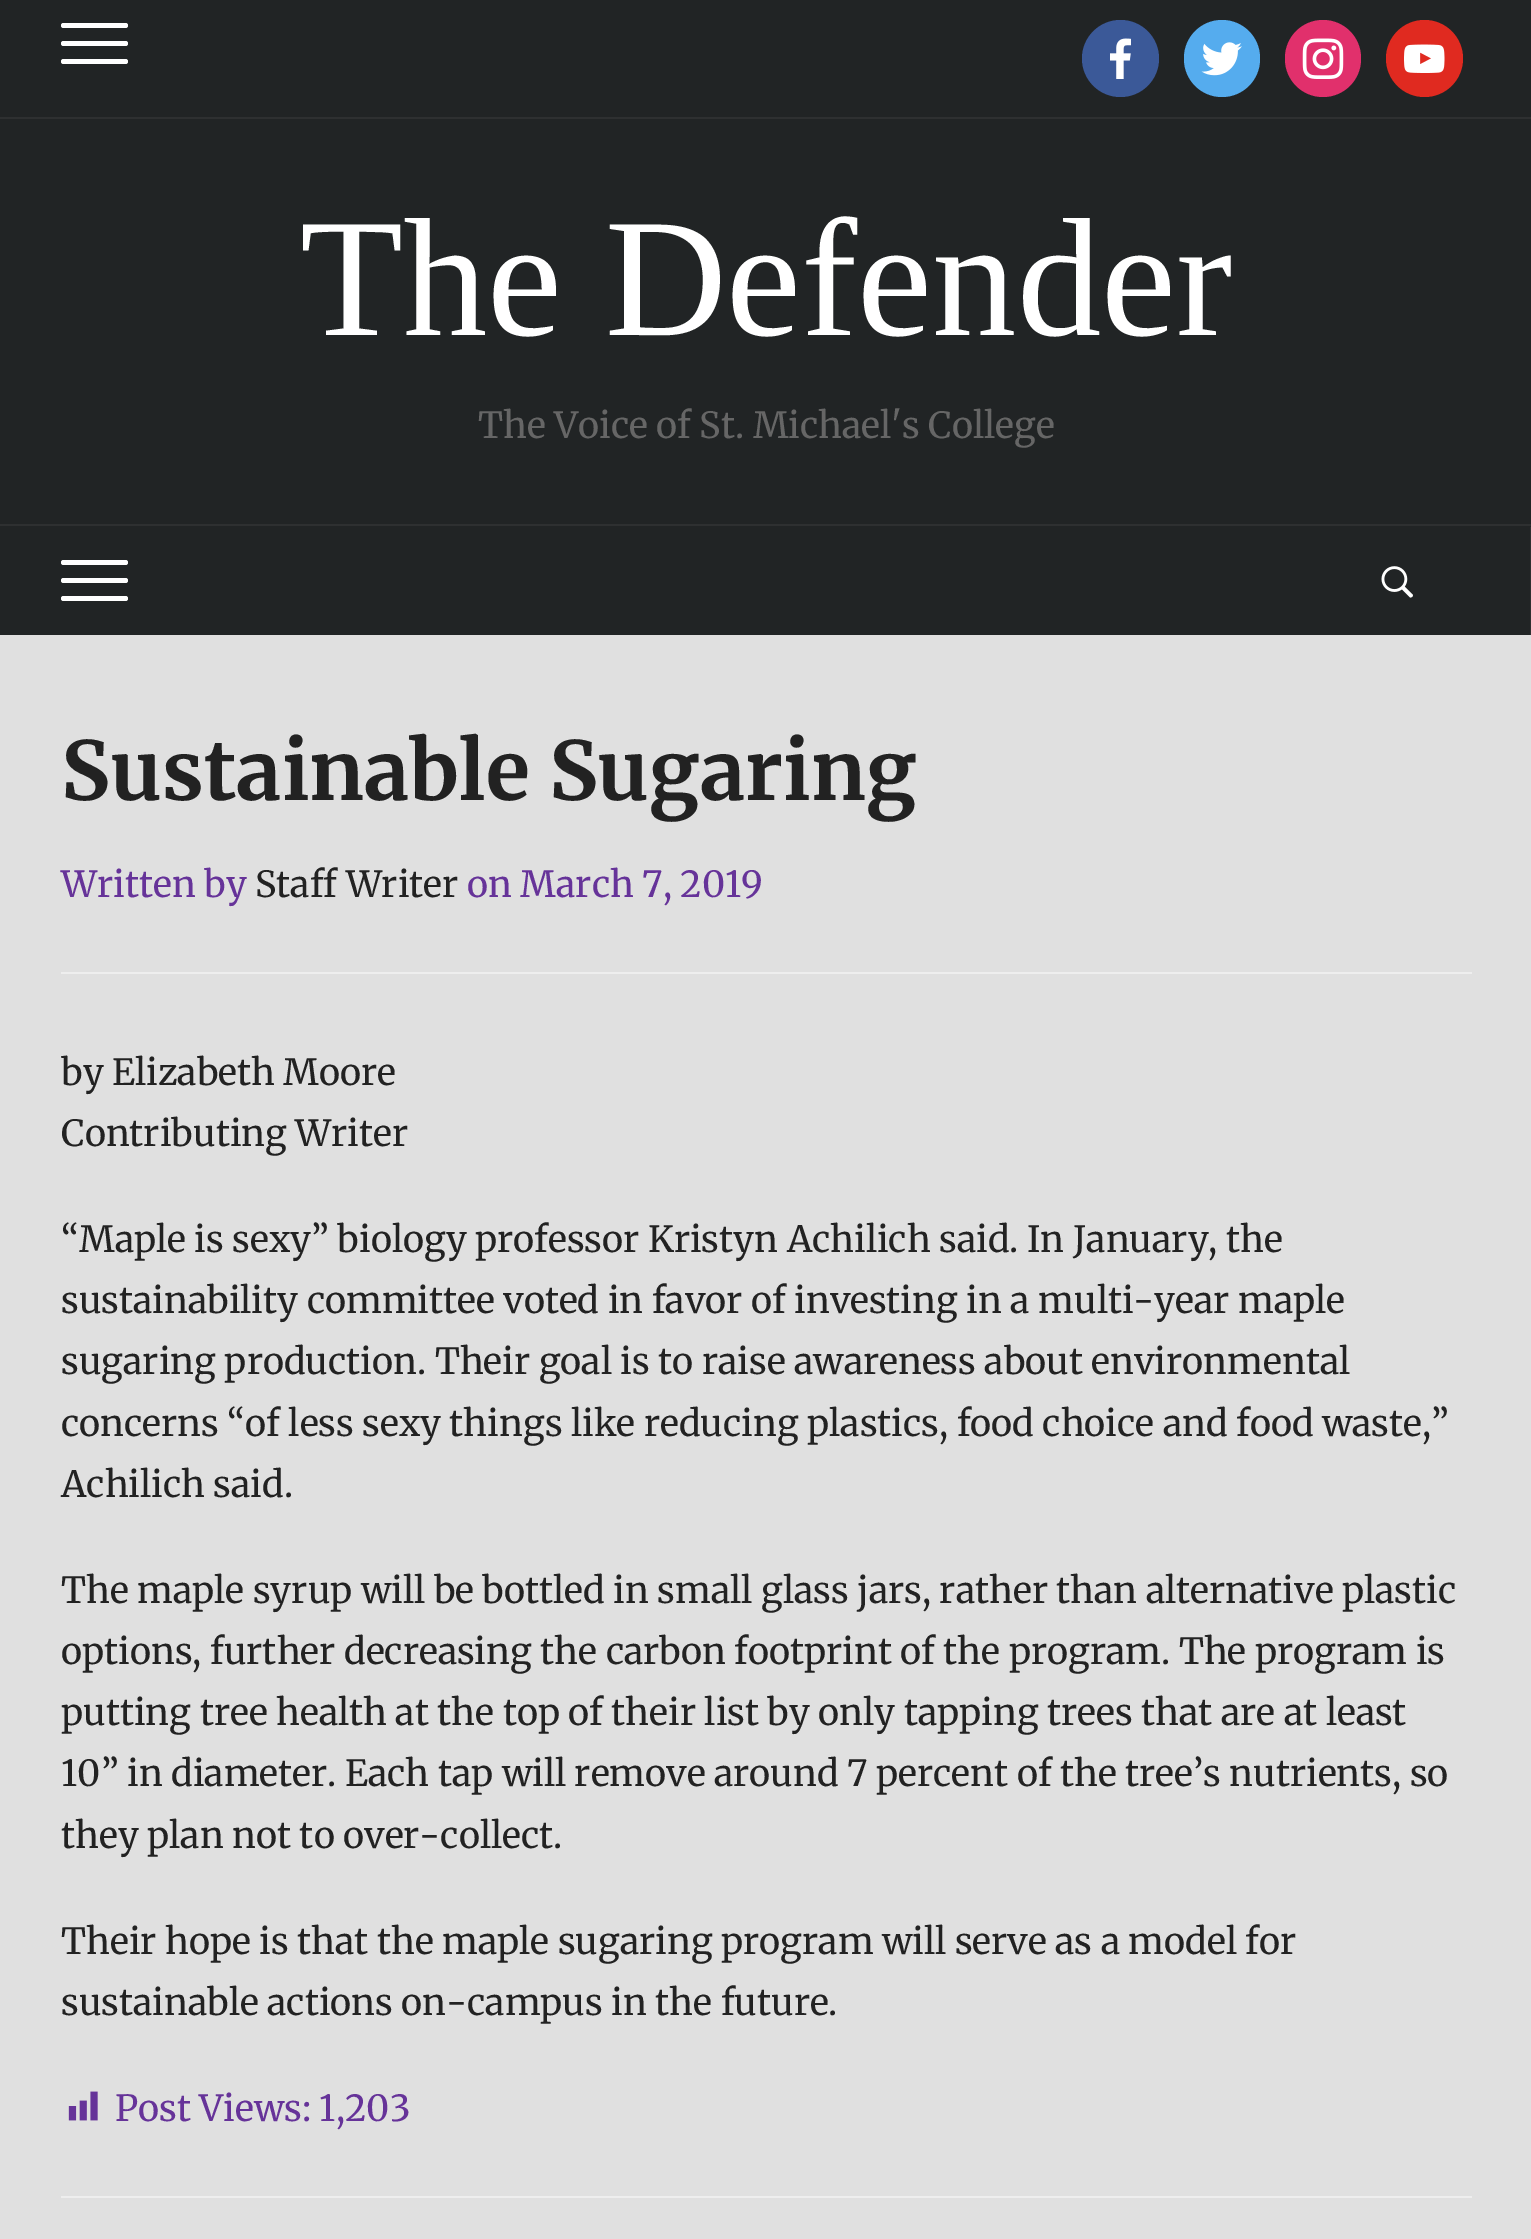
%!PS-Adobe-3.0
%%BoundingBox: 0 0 1531 2239
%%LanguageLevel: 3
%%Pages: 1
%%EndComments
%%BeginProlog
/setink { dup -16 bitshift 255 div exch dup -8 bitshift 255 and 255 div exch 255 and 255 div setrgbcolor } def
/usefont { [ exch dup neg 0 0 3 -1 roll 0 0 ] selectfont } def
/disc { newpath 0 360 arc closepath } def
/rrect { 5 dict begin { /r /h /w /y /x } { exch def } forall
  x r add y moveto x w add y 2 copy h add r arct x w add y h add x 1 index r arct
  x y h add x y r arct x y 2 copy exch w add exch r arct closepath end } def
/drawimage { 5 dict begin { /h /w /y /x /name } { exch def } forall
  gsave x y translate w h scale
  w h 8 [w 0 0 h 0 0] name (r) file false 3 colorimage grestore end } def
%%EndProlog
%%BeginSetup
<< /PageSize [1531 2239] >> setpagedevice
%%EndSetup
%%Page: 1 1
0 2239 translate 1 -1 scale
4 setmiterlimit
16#E0E0E0 setink
0 0 1531 2239 rectfill
16#212425 setink
0 0 1531 635 rectfill
16#2E3031 setink
0 117 1531 2 rectfill
16#FFFFFF setink
61 23 67 5 2.5 rrect fill
61 41 67 5 2.5 rrect fill
61 59 67 5 2.5 rrect fill
16#3B5998 setink
1120.5 58.5 38.5 disc fill
(img1.raw) 1110 38 21 41 drawimage
16#55ACEE setink
1184 20 76 77 38 rrect fill
(img2.raw) 1201 42 41 34 drawimage
16#E1306C setink
1285 20 76 77 38 rrect fill
(img3.raw) 1302 38 42 41 drawimage
16#E02A20 setink
1424.5 58.5 38.5 disc fill
(img4.raw) 1404 44 41 29 drawimage
/LiberationSerif-Regular 168.75 usefont
16#FFFFFF setink
300 335 moveto (The Defender) show
/Merriweather-Regular 36 usefont
16#666666 setink
478 438 moveto (The Voice of St. Michael's College) show
16#2E3031 setink
0 524 1531 2 rectfill
1530 527 1 108 rectfill
16#FFFFFF setink
61 560 67 5 2.5 rrect fill
61 578 67 5 2.5 rrect fill
61 596 67 5 2.5 rrect fill
(img5.raw) 1381 566 32 32 drawimage
/Merriweather-Bold 81 usefont
16#222222 setink
61 800 moveto (Sustainable Sugaring) show
16#EEEEEE setink
61 972 1411 2 rectfill
/Merriweather-Regular 36 usefont
16#663399 setink
61 897 moveto (Written by) show
16#222222 setink
255 897 moveto (Staff Writer) show
16#663399 setink
467 897 moveto (on March 7, 2019) show
16#222222 setink
[
    [(by Elizabeth Moore) 61 1085]
    [(Contributing Writer) 61 1146]
    [(“Maple is sexy” biology professor Kristyn Achilich said. In January, the) 61 1252]
    [(sustainability committee voted in favor of investing in a multi-year maple) 61 1313]
    [(sugaring production. Their goal is to raise awareness about environmental) 61 1374]
    [(concerns “of less sexy things like reducing plastics, food choice and food waste,”) 61 1436]
    [(Achilich said.) 61 1497]
    [(The maple syrup will be bottled in small glass jars, rather than alternative plastic) 61 1603]
    [(options, further decreasing the carbon footprint of the program. The program is) 61 1664]
    [(putting tree health at the top of their list by only tapping trees that are at least) 61 1725]
    [(10” in diameter. Each tap will remove around 7 percent of the tree’s nutrients, so) 61 1786]
    [(they plan not to over-collect.) 61 1848]
    [(Their hope is that the maple sugaring program will serve as a model for) 61 1954]
    [(sustainable actions on-campus in the future.) 61 2015]
] { aload pop moveto show } forall
16#EEEEEE setink
61 2196 1411 2 rectfill
(img6.raw) 68 2091 30 30 drawimage
16#663399 setink
115 2121 moveto (Post Views: 1,203) show
showpage
%%EOF
